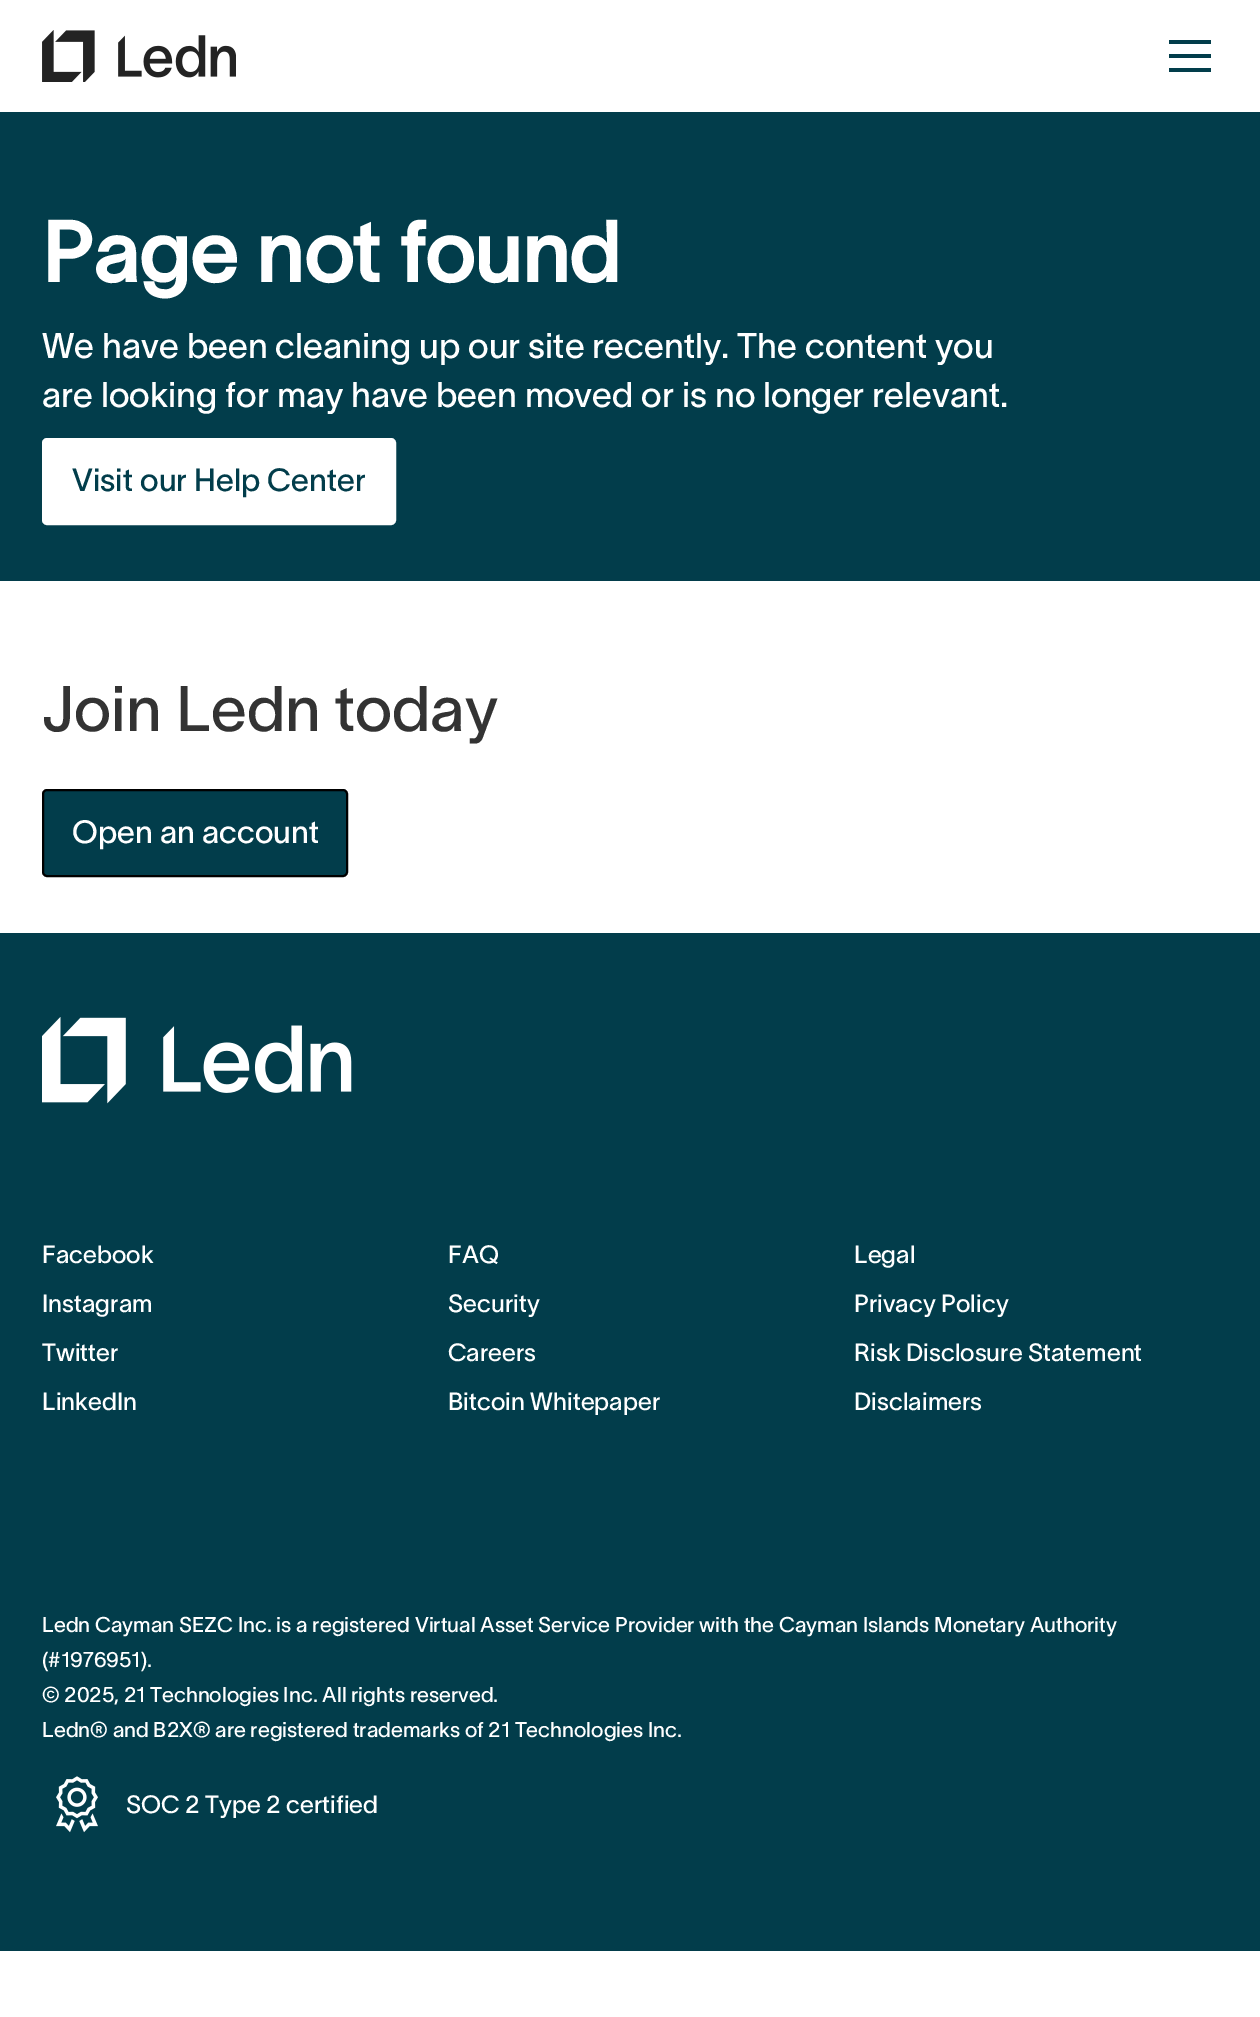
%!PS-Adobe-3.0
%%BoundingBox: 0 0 1260 2017
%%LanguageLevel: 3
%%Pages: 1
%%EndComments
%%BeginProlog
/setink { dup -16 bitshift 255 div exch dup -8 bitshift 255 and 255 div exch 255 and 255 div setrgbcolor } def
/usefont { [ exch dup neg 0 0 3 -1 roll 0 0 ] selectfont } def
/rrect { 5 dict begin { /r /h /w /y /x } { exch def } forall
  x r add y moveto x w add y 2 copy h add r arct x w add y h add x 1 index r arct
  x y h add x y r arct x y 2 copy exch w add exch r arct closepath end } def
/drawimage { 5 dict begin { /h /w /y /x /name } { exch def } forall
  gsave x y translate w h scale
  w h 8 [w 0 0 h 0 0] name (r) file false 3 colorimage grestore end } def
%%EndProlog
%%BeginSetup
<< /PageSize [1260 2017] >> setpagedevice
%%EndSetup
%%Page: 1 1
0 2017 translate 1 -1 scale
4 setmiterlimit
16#FFFFFF setink
0 0 1260 2017 rectfill
(img1.raw) 42 30 194 52 drawimage
[
    [1169 40 42 4 16#023D4B]
    [1169 54 42 4 16#023D4B]
    [1169 68 42 4 16#023D4B]
    [0 112 1260 469 16#023D4B]
] { aload pop setink rectfill } forall
/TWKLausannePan-Bold 84 usefont
16#FFFFFF setink
42 282 moveto (Page not found) show
/TWKLausannePan-Regular 35 usefont
42 358 moveto (We have been cleaning up our site recently. The content you) show
42 407 moveto (are looking for may have been moved or is no longer relevant.) show
43 439 352 85 4 rrect gsave fill grestore
2 setlinewidth
stroke
/TWKLausannePan-Regular 31.5 usefont
16#023D4B setink
72 491 moveto (Visit our Help Center) show
/TWKLausannePan-Regular 63 usefont
16#333333 setink
42 731 moveto (Join Ledn today) show
16#023D4B setink
43 790 304 86 4 rrect gsave fill grestore
16#000000 setink
stroke
/TWKLausannePan-Regular 31.5 usefont
16#FFFFFF setink
72 843 moveto (Open an account) show
16#023D4B setink
0 933 1260 1018 rectfill
(img2.raw) 42 1017 310 87 drawimage
/TWKLausannePan-Regular 24.5 usefont
16#FFFFFF setink
[
    [(Facebook) 42 1263]
    [(Instagram) 42 1312]
    [(Twitter) 42 1361]
    [(LinkedIn) 42 1410]
    [(FAQ) 448 1263]
    [(Security) 448 1312]
    [(Careers) 448 1361]
    [(Bitcoin Whitepaper) 448 1410]
    [(Legal) 854 1263]
    [(Privacy Policy) 854 1312]
    [(Risk Disclosure Statement) 854 1361]
    [(Disclaimers) 854 1410]
] { aload pop moveto show } forall
/TWKLausannePan-Regular 21 usefont
[
    [(Ledn Cayman SEZC Inc. is a registered Virtual Asset Service Provider with the Cayman Islands Monetary Authority) 42 1632]
    [(\(#1976951\).) 42 1667]
    [(© 2025, 21 Technologies Inc. All rights reserved.) 42 1702]
    [(Ledn® and B2X® are registered trademarks of 21 Technologies Inc.) 42 1737]
] { aload pop moveto show } forall
(img3.raw) 56 1776 42 57 drawimage
/TWKLausannePan-Regular 24.5 usefont
126 1813 moveto (SOC 2 Type 2 certified) show
showpage
%%EOF
